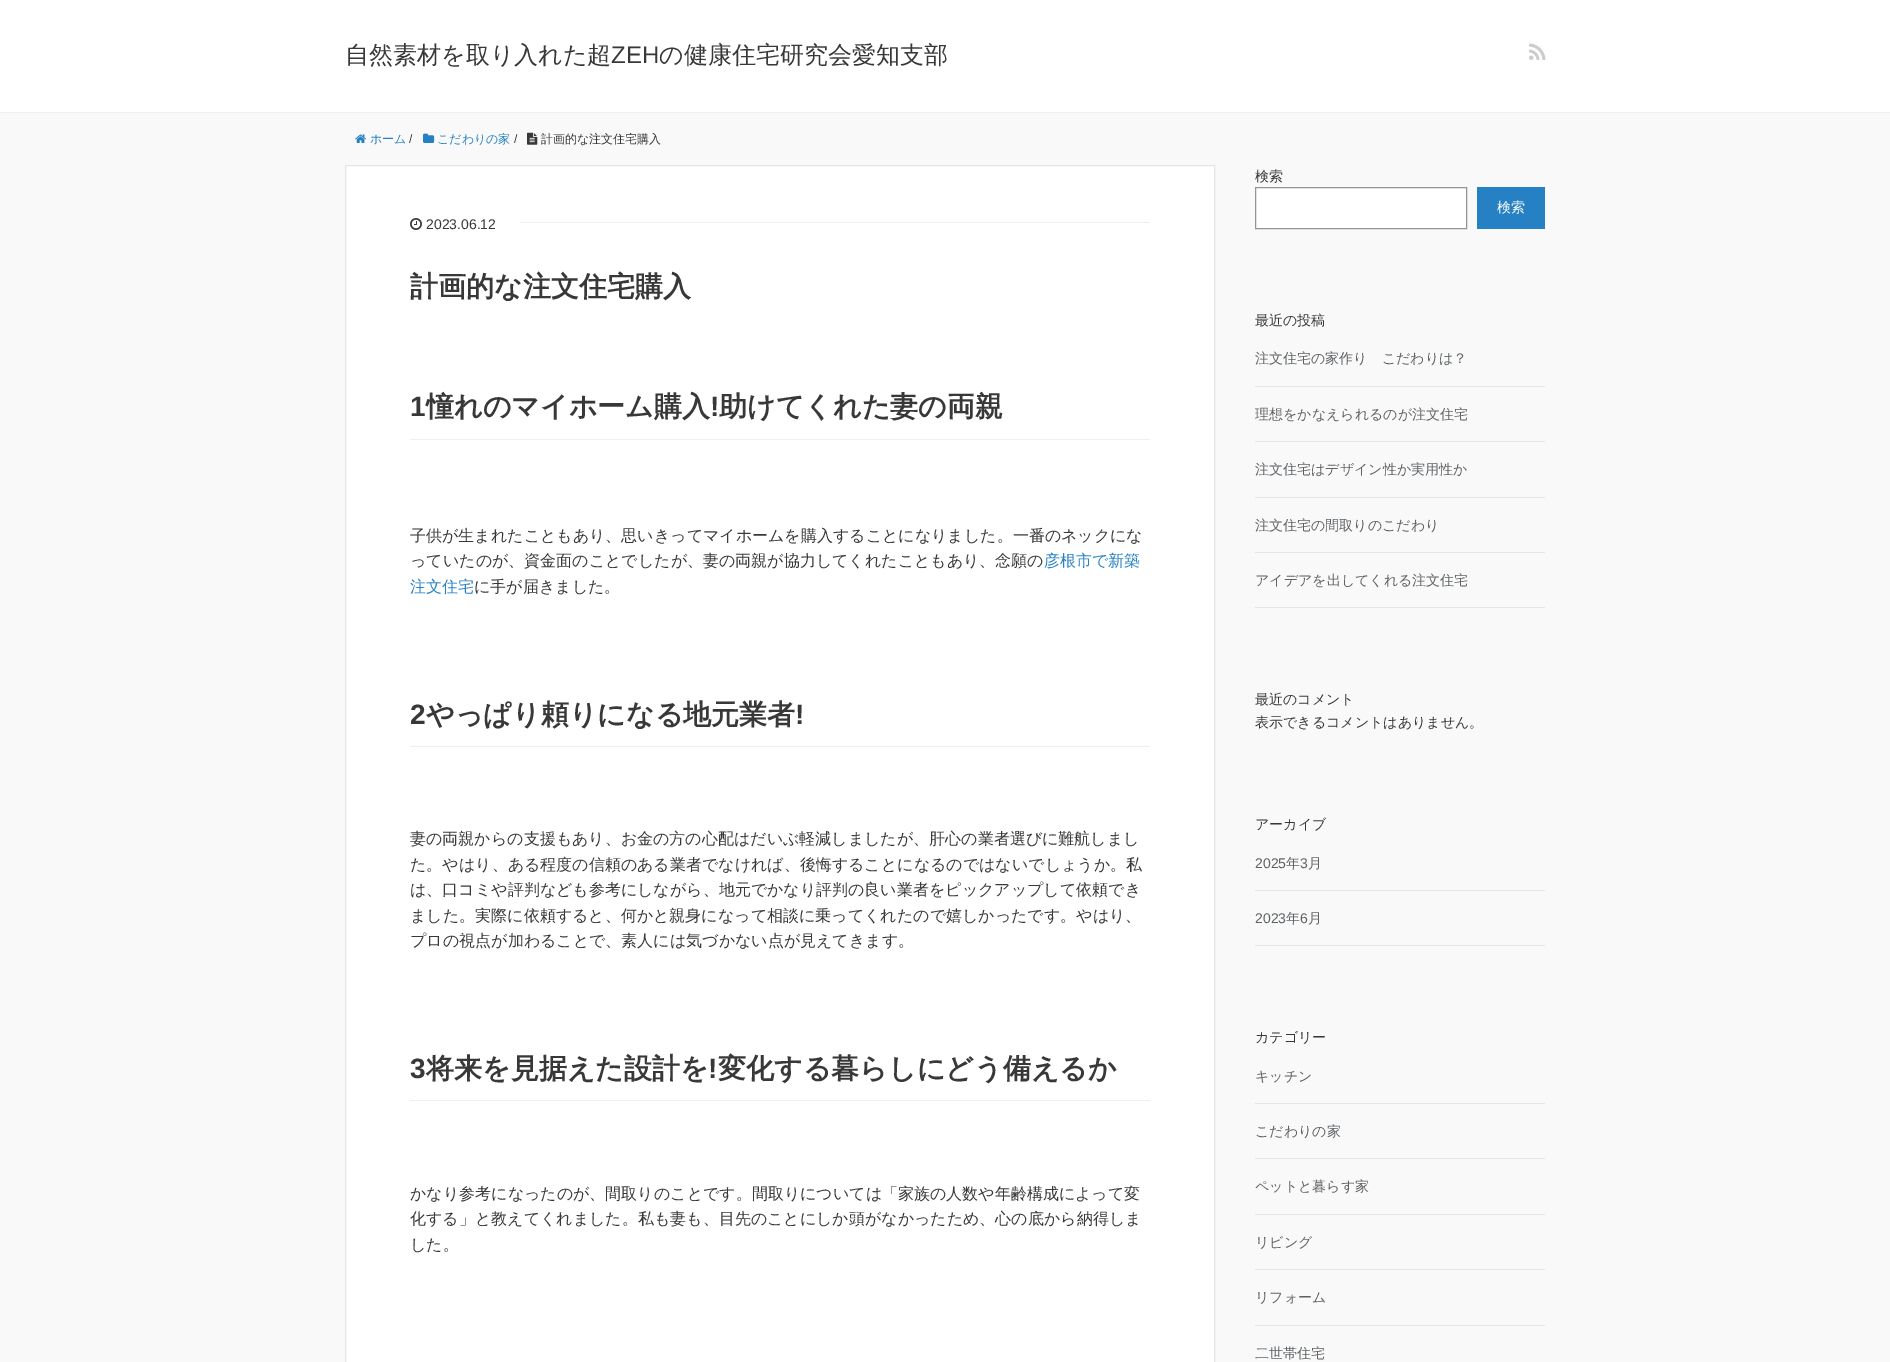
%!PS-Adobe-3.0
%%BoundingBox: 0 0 1890 1362
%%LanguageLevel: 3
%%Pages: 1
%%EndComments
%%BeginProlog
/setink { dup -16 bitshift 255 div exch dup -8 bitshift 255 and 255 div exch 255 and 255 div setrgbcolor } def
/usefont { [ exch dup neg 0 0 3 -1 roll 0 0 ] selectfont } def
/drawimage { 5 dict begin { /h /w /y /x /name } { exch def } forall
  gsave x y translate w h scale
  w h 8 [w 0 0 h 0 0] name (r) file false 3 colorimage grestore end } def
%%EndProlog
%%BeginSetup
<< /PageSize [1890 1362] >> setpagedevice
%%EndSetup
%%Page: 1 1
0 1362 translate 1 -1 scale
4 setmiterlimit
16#F9F9F9 setink
0 0 1890 1362 rectfill
16#FFFFFF setink
0 0 1890 112 rectfill
16#EFEFEF setink
0 112 1890 1 rectfill
/WenQuanYiZenHei-Medium 24 usefont
16#383838 setink
345 63 moveto (自然素材を取り入れた超) show
/LiberationSans-Regular 24 usefont
611 63 moveto (ZEH) show
/WenQuanYiZenHei-Medium 24 usefont
659 63 moveto (の健康住宅研究会愛知支部) show
(img1.raw) 1529 43 17 17 drawimage
(img2.raw) 355 134 11 9 drawimage
/WenQuanYiZenHei-Medium 12 usefont
16#2581C4 setink
370 143 moveto (ホーム) show
/LiberationSans-Regular 12 usefont
16#383838 setink
409 143 moveto (/) show
(img3.raw) 423 133 12 10 drawimage
/WenQuanYiZenHei-Medium 12 usefont
16#2581C4 setink
437 143 moveto (こだわりの家) show
/LiberationSans-Regular 12 usefont
16#383838 setink
514 143 moveto (/) show
(img4.raw) 527 132 11 13 drawimage
/WenQuanYiZenHei-Medium 12 usefont
541 143 moveto (計画的な注文住宅購入) show
16#FFFFFF setink
345.5 165.5 moveto 1214.5 165.5 lineto 1214.5 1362.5 lineto 345.5 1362.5 lineto closepath gsave fill grestore
16#E5E5E5 setink
stroke
16#EFEFEF setink
520 222 630 1 rectfill
(img5.raw) 410 218 12 12 drawimage
/LiberationSans-Regular 14 usefont
16#383838 setink
426 229 moveto (2023.06.12) show
/WenQuanYiZenHei-Bold 28 usefont
410 296 moveto (計画的な注文住宅購入) show
16#EFEFEF setink
410 439 740 1 rectfill
/LiberationSans-Bold 28 usefont
16#383838 setink
410 416 moveto (1) show
/WenQuanYiZenHei-Bold 28 usefont
426 416 moveto (憧れのマイホーム購入) show
/LiberationSans-Bold 28 usefont
710 416 moveto (!) show
/WenQuanYiZenHei-Bold 28 usefont
719 416 moveto (助けてくれた妻の両親) show
/WenQuanYiZenHei-Medium 16 usefont
410 541 moveto (子供が生まれたこともあり、思いきってマイホームを購入することになりました。一番のネックにな) show
410 566 moveto (っていたのが、資金面のことでしたが、妻の両親が協力してくれたこともあり、念願の) show
16#2581C4 setink
1044 566 moveto (彦根市で新築) show
410 592 moveto (注文住宅) show
16#383838 setink
474 592 moveto (に手が届きました。) show
16#EFEFEF setink
410 746 740 1 rectfill
/LiberationSans-Bold 28 usefont
16#383838 setink
410 724 moveto (2) show
/WenQuanYiZenHei-Bold 28 usefont
426 724 moveto (やっぱり頼りになる地元業者) show
/LiberationSans-Bold 28 usefont
795 724 moveto (!) show
/WenQuanYiZenHei-Medium 16 usefont
[
    [(妻の両親からの支援もあり、お金の方の心配はだいぶ軽減しましたが、肝心の業者選びに難航しまし) 410 844]
    [(た。やはり、ある程度の信頼のある業者でなければ、後悔することになるのではないでしょうか。私) 410 870]
    [(は、口コミや評判なども参考にしながら、地元でかなり評判の良い業者をピックアップして依頼でき) 410 895]
    [(ました。実際に依頼すると、何かと親身になって相談に乗ってくれたので嬉しかったです。やはり、) 410 921]
    [(プロの視点が加わることで、素人には気づかない点が見えてきます。) 410 946]
] { aload pop moveto show } forall
16#EFEFEF setink
410 1100 740 1 rectfill
/LiberationSans-Bold 28 usefont
16#383838 setink
410 1078 moveto (3) show
/WenQuanYiZenHei-Bold 28 usefont
426 1078 moveto (将来を見据えた設計を) show
/LiberationSans-Bold 28 usefont
708 1078 moveto (!) show
/WenQuanYiZenHei-Bold 28 usefont
718 1078 moveto (変化する暮らしにどう備えるか) show
/WenQuanYiZenHei-Medium 16 usefont
[
    [(かなり参考になったのが、間取りのことです。間取りについては「家族の人数や年齢構成によって変) 410 1199]
    [(化する」と教えてくれました。私も妻も、目先のことにしか頭がなかったため、心の底から納得しま) 410 1224]
    [(した。) 410 1250]
] { aload pop moveto show } forall
/WenQuanYiZenHei-Medium 14 usefont
1255 181 moveto (検索) show
16#FFFFFF setink
1255.5 187.5 moveto 1466.5 187.5 lineto 1466.5 228.5 lineto 1255.5 228.5 lineto closepath gsave fill grestore
16#949494 setink
stroke
16#2581C4 setink
1477 187 68 42 rectfill
16#FFFFFF setink
1497 212 moveto (検索) show
16#383838 setink
1255 325 moveto (最近の投稿) show
16#E5E5E5 setink
1255 386 290 1 rectfill
16#5E6265 setink
1255 363 moveto (注文住宅の家作り　こだわりは？) show
16#E5E5E5 setink
1255 441 290 1 rectfill
16#5E6265 setink
1255 419 moveto (理想をかなえられるのが注文住宅) show
16#E5E5E5 setink
1255 497 290 1 rectfill
16#5E6265 setink
1255 474 moveto (注文住宅はデザイン性か実用性か) show
16#E5E5E5 setink
1255 552 290 1 rectfill
16#5E6265 setink
1255 530 moveto (注文住宅の間取りのこだわり) show
16#E5E5E5 setink
1255 607 290 1 rectfill
16#5E6265 setink
1255 585 moveto (アイデアを出してくれる注文住宅) show
16#383838 setink
[
    [(最近のコメント) 1255 704]
    [(表示できるコメントはありません。) 1255 727]
    [(アーカイブ) 1255 829]
] { aload pop moveto show } forall
16#E5E5E5 setink
1255 890 290 1 rectfill
/LiberationSans-Regular 14 usefont
16#5E6265 setink
1255 868 moveto (2025) show
/WenQuanYiZenHei-Medium 14 usefont
1286 868 moveto (年) show
/LiberationSans-Regular 14 usefont
1300 868 moveto (3) show
/WenQuanYiZenHei-Medium 14 usefont
1308 868 moveto (月) show
16#E5E5E5 setink
1255 945 290 1 rectfill
/LiberationSans-Regular 14 usefont
16#5E6265 setink
1255 923 moveto (2023) show
/WenQuanYiZenHei-Medium 14 usefont
1286 923 moveto (年) show
/LiberationSans-Regular 14 usefont
1300 923 moveto (6) show
/WenQuanYiZenHei-Medium 14 usefont
1308 923 moveto (月) show
16#383838 setink
1255 1042 moveto (カテゴリー) show
16#E5E5E5 setink
1255 1103 290 1 rectfill
16#5E6265 setink
1255 1081 moveto (キッチン) show
16#E5E5E5 setink
1255 1158 290 1 rectfill
16#5E6265 setink
1255 1136 moveto (こだわりの家) show
16#E5E5E5 setink
1255 1214 290 1 rectfill
16#5E6265 setink
1255 1191 moveto (ペットと暮らす家) show
16#E5E5E5 setink
1255 1269 290 1 rectfill
16#5E6265 setink
1255 1247 moveto (リビング) show
16#E5E5E5 setink
1255 1325 290 1 rectfill
16#5E6265 setink
1255 1302 moveto (リフォーム) show
1255 1358 moveto (二世帯住宅) show
showpage
%%EOF
